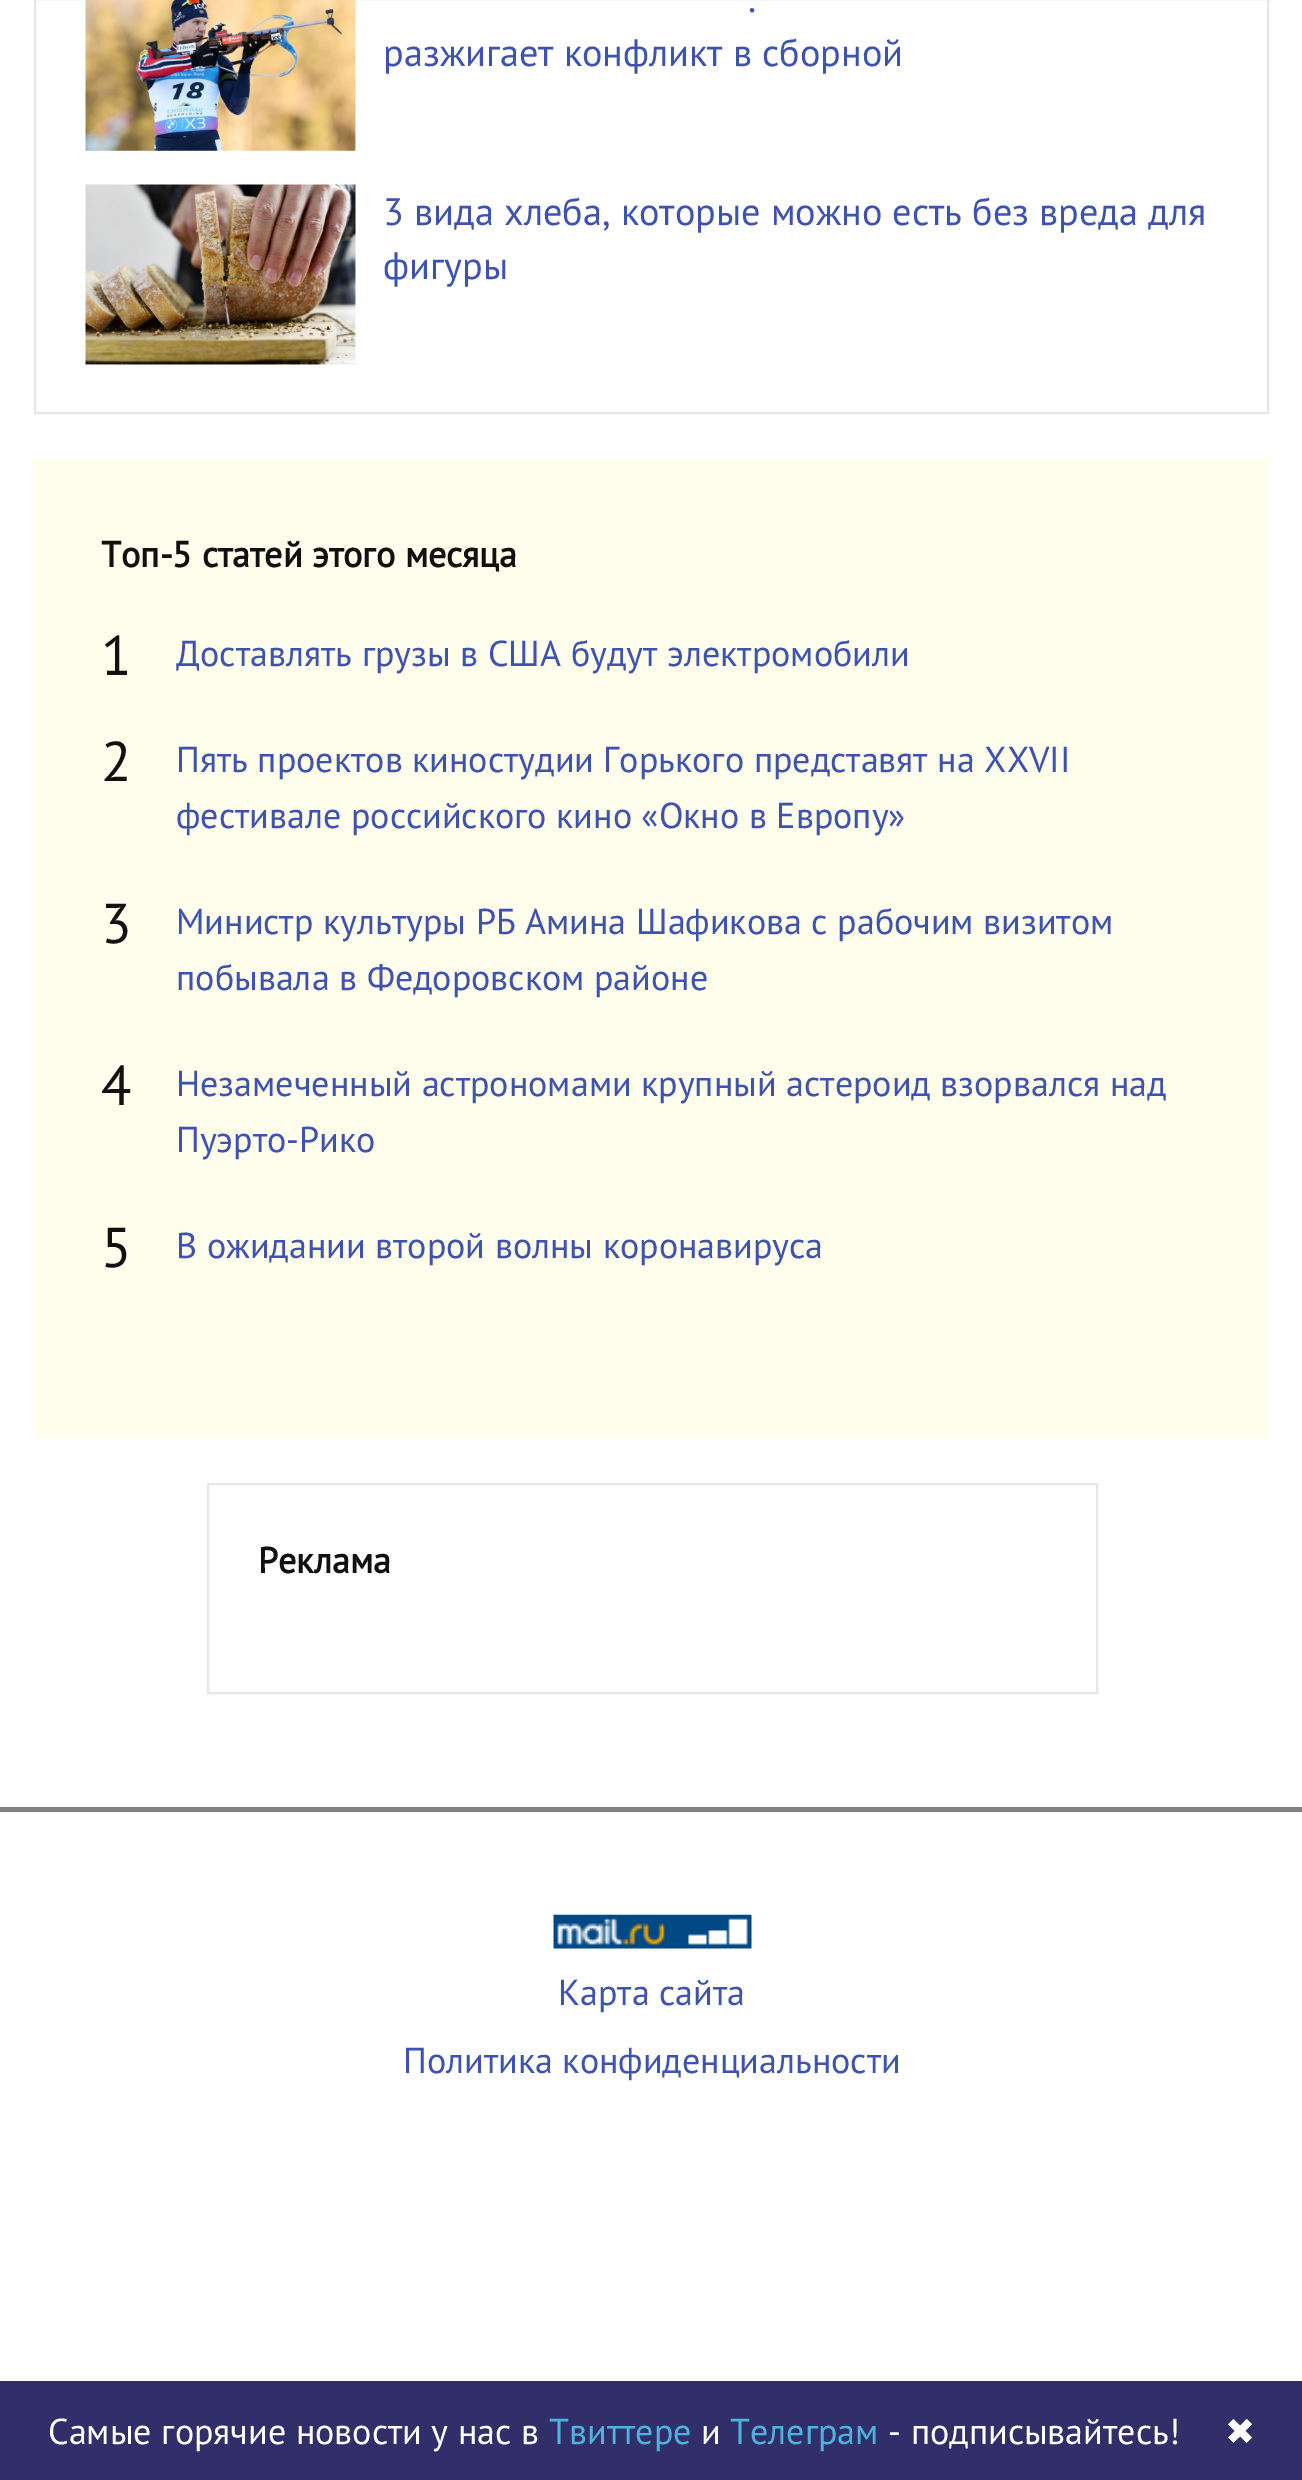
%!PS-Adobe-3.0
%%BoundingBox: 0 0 1302 2480
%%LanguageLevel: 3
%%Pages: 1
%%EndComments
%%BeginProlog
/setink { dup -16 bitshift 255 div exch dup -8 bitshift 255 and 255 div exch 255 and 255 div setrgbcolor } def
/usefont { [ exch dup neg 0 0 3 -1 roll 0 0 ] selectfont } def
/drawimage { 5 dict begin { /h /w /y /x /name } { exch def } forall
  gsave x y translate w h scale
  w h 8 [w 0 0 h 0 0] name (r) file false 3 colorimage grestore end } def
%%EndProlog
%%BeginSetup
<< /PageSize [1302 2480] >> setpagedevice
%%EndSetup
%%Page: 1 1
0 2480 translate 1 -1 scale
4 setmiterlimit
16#FFFFFF setink
0 0 1302 2480 rectfill
16#E7E7E7 setink
2 setlinewidth
35 -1 1233 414 rectstroke
(img1.raw) 85 0 271 151 drawimage
/PTSans-Regular 38.25 usefont
16#3E52B0 setink
748 12 moveto (.) show
383 66 moveto (разжигает конфликт в сборной) show
(img2.raw) 85 184 271 181 drawimage
383 225 moveto (3 вида хлеба, которые можно есть без вреда для) show
383 279 moveto (фигуры) show
16#FFFDEC setink
34 459 1235 979 rectfill
/PTSans-Bold 36 usefont
16#111111 setink
101 567 moveto (Топ-5 статей этого месяца) show
/PTSans-Regular 56 usefont
101 675 moveto (1) show
/PTSans-Regular 36 usefont
16#3E52B0 setink
176 666 moveto (Доставлять грузы в США будут электромобили) show
/PTSans-Regular 56 usefont
16#111111 setink
101 781 moveto (2) show
/PTSans-Regular 36 usefont
16#3E52B0 setink
176 772 moveto (Пять проектов киностудии Горького представят на XXVII) show
176 828 moveto (фестивале российского кино «Окно в Европу») show
/PTSans-Regular 56 usefont
16#111111 setink
101 943 moveto (3) show
/PTSans-Regular 36 usefont
16#3E52B0 setink
176 934 moveto (Министр культуры РБ Амина Шафикова с рабочим визитом) show
176 990 moveto (побывала в Федоровском районе) show
/PTSans-Regular 56 usefont
16#111111 setink
101 1105 moveto (4) show
/PTSans-Regular 36 usefont
16#3E52B0 setink
176 1096 moveto (Незамеченный астрономами крупный астероид взорвался над) show
176 1152 moveto (Пуэрто-Рико) show
/PTSans-Regular 56 usefont
16#111111 setink
101 1267 moveto (5) show
/PTSans-Regular 36 usefont
16#3E52B0 setink
176 1258 moveto (В ожидании второй волны коронавируса) show
16#E7E7E7 setink
208 1484 889 209 rectstroke
/PTSans-Bold 36 usefont
16#111111 setink
258 1573 moveto (Реклама) show
16#828282 setink
0 1807 1302 5 rectfill
(img3.raw) 553 1914 199 35 drawimage
/PTSans-Regular 36 usefont
16#3E52B0 setink
558 2005 moveto (Карта сайта) show
403 2073 moveto (Политика конфиденциальности) show
16#302F69 setink
0 2381 1302 99 rectfill
16#FFFFFF setink
48 2444 moveto (Самые горячие новости у нас в) show
16#50B1DF setink
549 2444 moveto (Твиттере) show
16#FFFFFF setink
701 2444 moveto (и) show
16#50B1DF setink
730 2444 moveto (Телеграм) show
16#FFFFFF setink
888 2444 moveto (- подписывайтесь!) show
/DejaVuSans-Regular 36 usefont
1225 2444 moveto (✖) show
showpage
%%EOF
